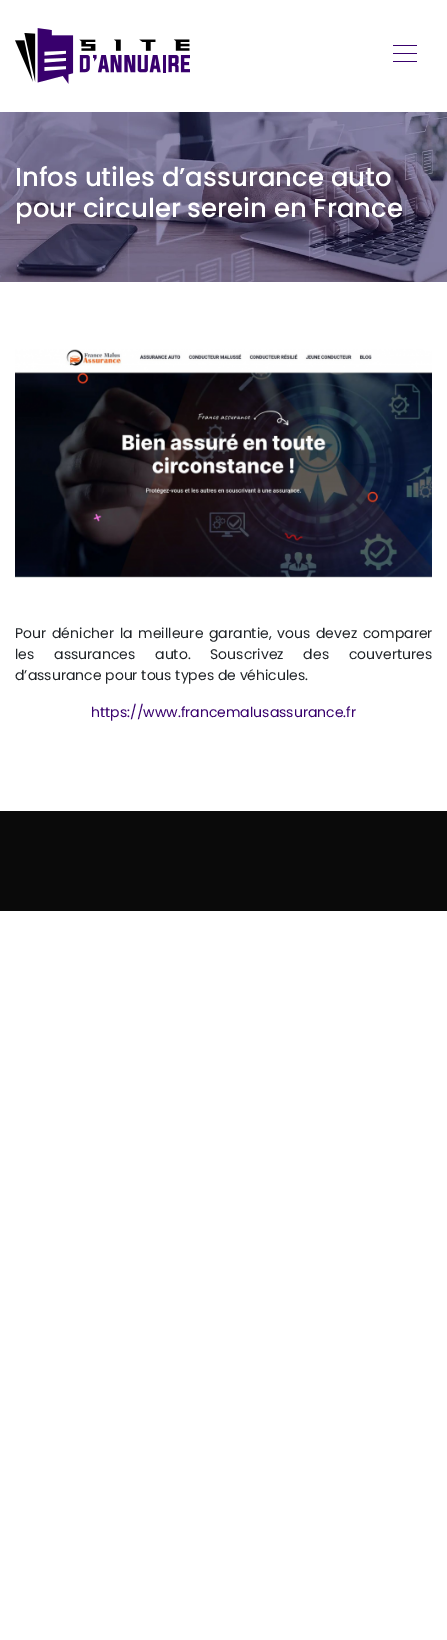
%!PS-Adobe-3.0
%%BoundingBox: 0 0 447 1640
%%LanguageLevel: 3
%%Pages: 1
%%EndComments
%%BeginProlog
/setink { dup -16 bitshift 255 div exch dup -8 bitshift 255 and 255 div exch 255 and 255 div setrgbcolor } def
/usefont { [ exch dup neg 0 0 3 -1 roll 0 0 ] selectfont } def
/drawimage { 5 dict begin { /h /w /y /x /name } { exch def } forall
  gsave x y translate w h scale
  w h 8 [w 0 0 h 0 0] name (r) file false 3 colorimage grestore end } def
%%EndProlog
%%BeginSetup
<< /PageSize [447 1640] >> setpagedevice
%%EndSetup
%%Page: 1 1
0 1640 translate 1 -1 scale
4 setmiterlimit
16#FFFFFF setink
0 0 447 1640 rectfill
(img1.raw) 15 28 175 56 drawimage
[
    [393 45 24 1 16#38006D]
    [393 53 24 1 16#38006D]
    [393 61 24 1 16#38006D]
] { aload pop setink rectfill } forall
(img2.raw) 0 112 447 170 drawimage
/Poppins-Medium 26 usefont
16#FFFFFF setink
15 186 moveto (Infos utiles d’assurance auto) show
15 217 moveto (pour circuler serein en France) show
(img3.raw) 15 349 417 229 drawimage
/Poppins-Regular 14 usefont
16#212529 setink
15 638 moveto 2 0 32 (Pour dénicher la meilleure garantie, vous devez comparer) widthshow
15 659 moveto 16 0 32 (les assurances auto. Souscrivez des couvertures) widthshow
15 680 moveto (d’assurance pour tous types de véhicules.) show
16#38006D setink
91 717 moveto (https://www.francemalusassurance.fr) show
16#0A0A0A setink
0 811 447 100 rectfill
showpage
%%EOF
